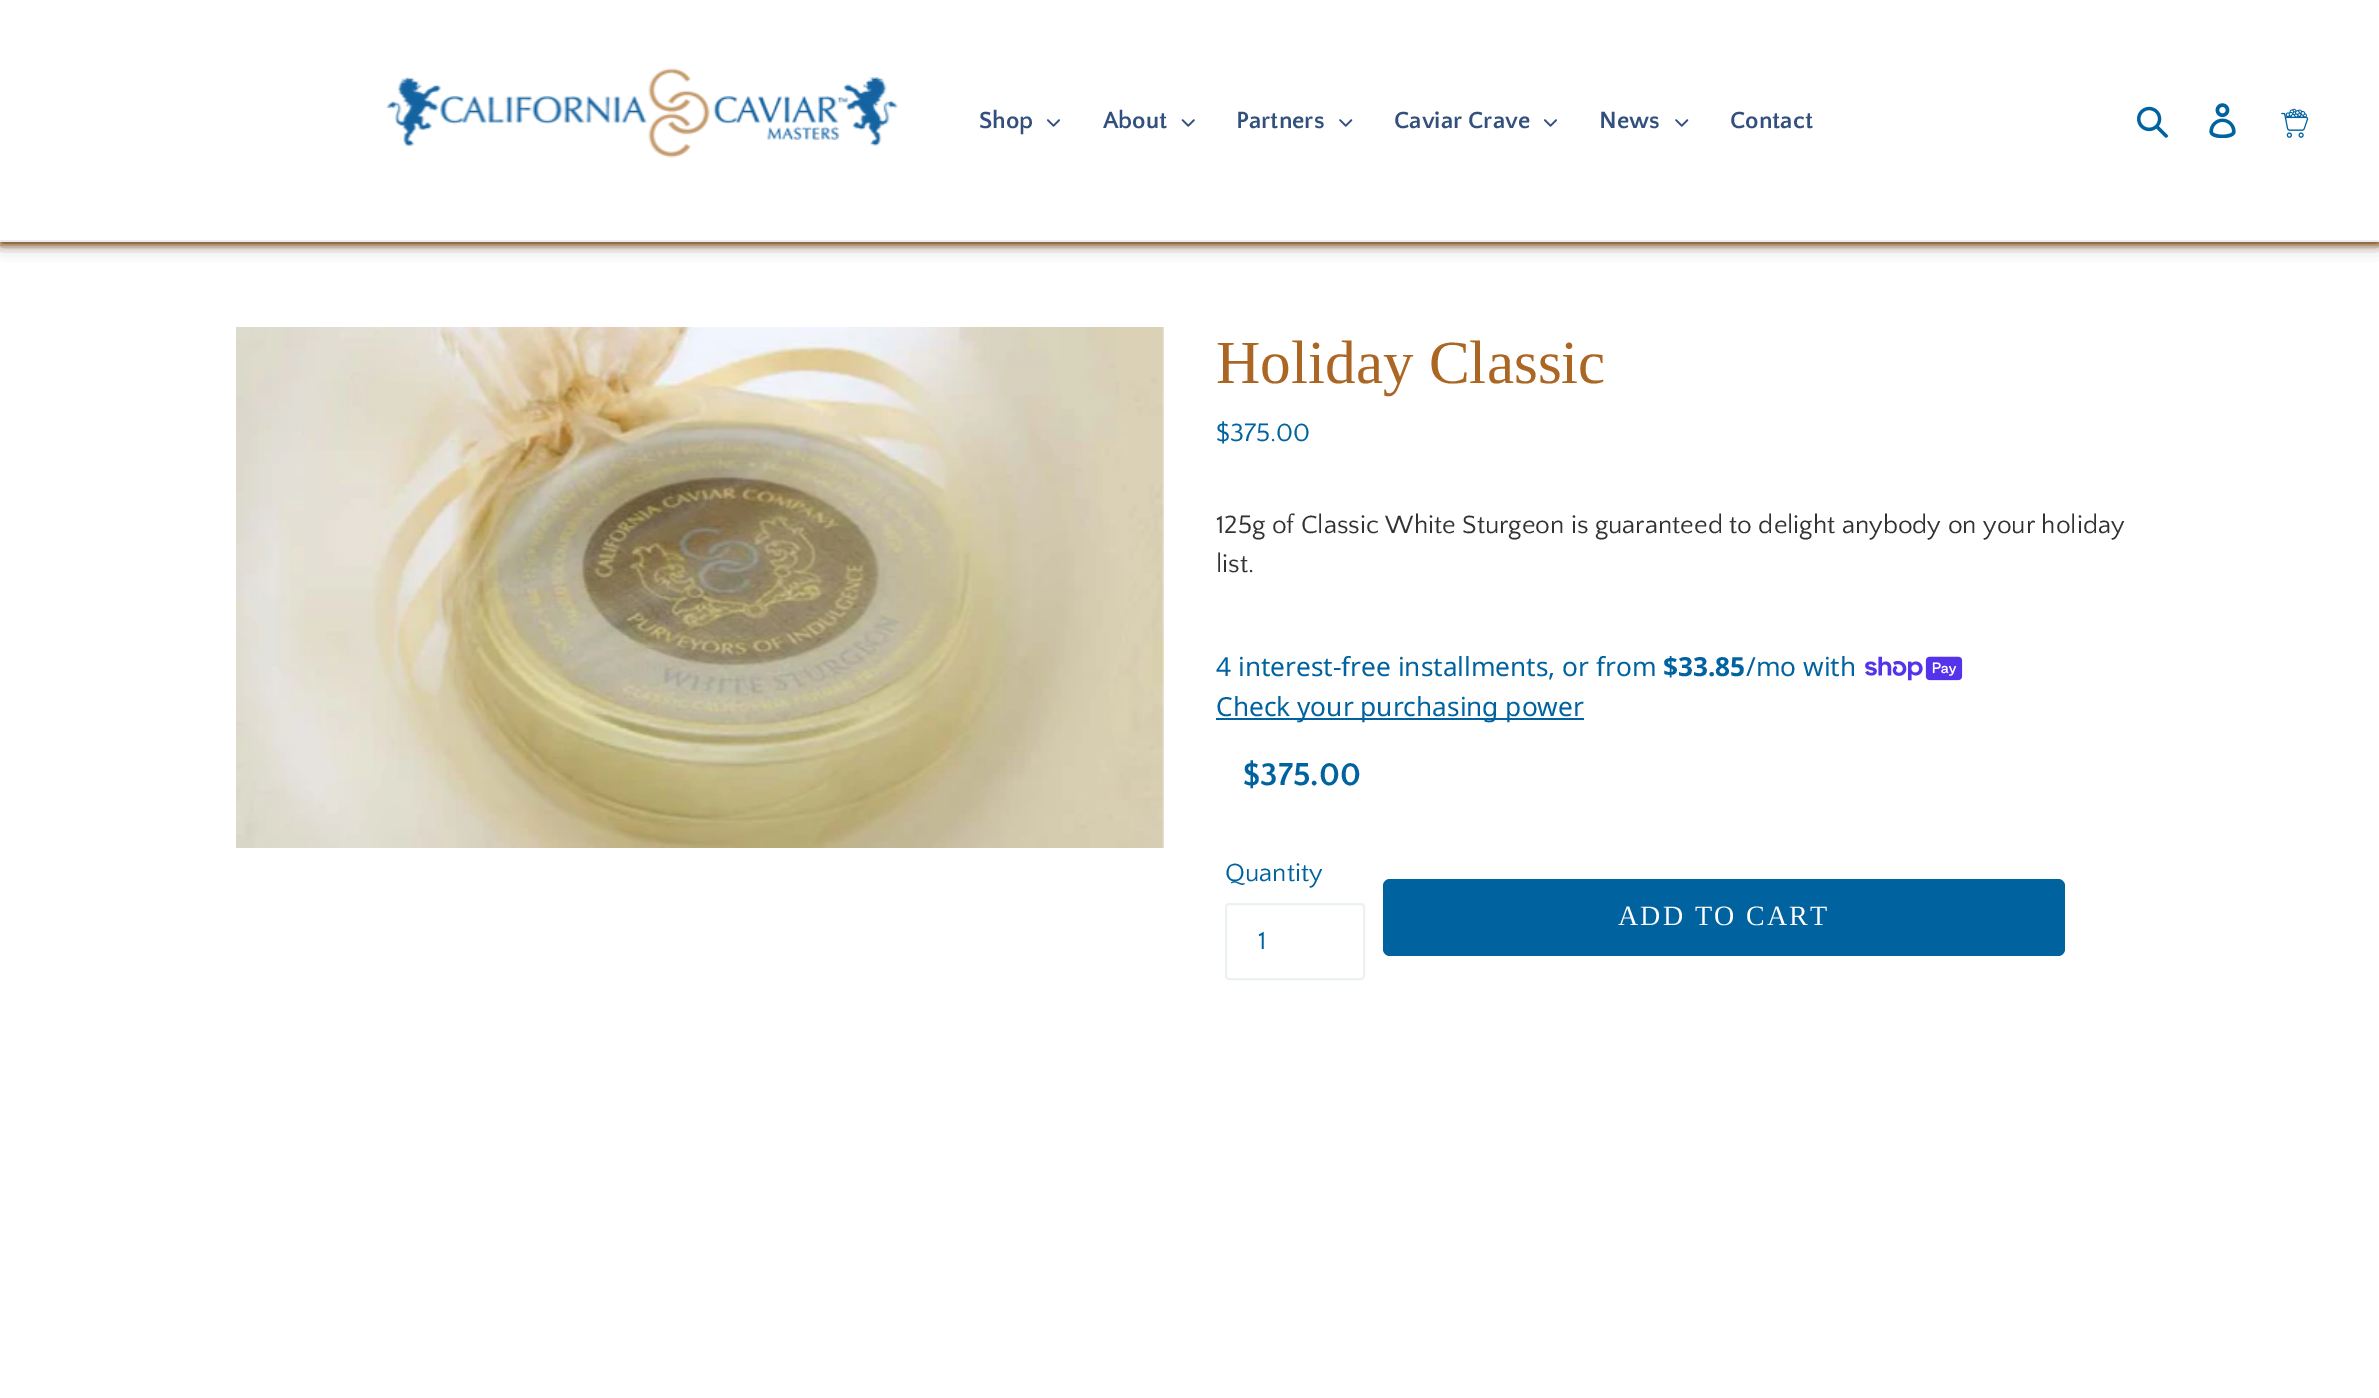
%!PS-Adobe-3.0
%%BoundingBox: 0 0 2379 1398
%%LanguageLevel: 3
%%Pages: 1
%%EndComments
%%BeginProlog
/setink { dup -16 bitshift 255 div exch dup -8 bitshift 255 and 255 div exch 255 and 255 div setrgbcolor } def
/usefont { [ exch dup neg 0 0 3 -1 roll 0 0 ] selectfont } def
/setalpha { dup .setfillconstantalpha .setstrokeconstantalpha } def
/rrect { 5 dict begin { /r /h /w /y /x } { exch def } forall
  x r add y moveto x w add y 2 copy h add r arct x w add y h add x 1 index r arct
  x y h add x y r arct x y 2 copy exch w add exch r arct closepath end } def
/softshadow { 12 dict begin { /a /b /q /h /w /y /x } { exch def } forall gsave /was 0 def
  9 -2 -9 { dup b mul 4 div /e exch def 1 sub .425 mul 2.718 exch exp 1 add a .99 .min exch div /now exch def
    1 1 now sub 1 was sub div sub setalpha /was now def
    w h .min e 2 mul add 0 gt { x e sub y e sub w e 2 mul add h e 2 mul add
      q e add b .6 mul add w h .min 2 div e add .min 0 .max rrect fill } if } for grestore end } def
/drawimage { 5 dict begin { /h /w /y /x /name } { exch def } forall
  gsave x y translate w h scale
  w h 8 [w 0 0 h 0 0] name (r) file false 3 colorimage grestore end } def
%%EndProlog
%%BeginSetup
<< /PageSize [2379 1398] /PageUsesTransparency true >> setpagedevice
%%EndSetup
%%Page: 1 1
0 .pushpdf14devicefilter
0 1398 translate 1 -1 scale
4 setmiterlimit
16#FFFFFF setink
0 0 2379 1398 rectfill
16#AA6622 setink
0 4 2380 241 0 3.5 1 softshadow
16#000000 setink
2 4 2376 238 0 9 0.5 softshadow
16#FFFFFF setink
0 0 2379 240 rectfill
16#EBEBEB setink
0 240 2379 2 rectfill
(img1.raw) 386 68 512 90 drawimage
/QuattrocentoSans-Bold 24.5 usefont
16#33507D setink
979 128 moveto (Shop) show
(img2.raw) 1047 119 13 8 drawimage
1103 128 moveto (About) show
(img3.raw) 1181 119 14 8 drawimage
1236 128 moveto (Partners) show
(img4.raw) 1339 119 14 8 drawimage
1394 128 moveto (Caviar Crave) show
(img2.raw) 1544 119 13 8 drawimage
1599 128 moveto (News) show
(img4.raw) 1675 119 14 8 drawimage
1730 128 moveto (Contact) show
(img5.raw) 2137 106 31 32 drawimage
(img6.raw) 2209 103 27 35 drawimage
(img7.raw) 2281 108 28 30 drawimage
(img8.raw) 236 327 928 521 drawimage
/LiberationSerif-Regular 61.25 usefont
16#AA6622 setink
1216 383 moveto (Holiday Classic) show
/QuattrocentoSans-Regular 26.25 usefont
16#00629F setink
1216 441 moveto ($375.00) show
16#333232 setink
1216 533 moveto (125g of Classic White Sturgeon is guaranteed to delight anybody on your holiday) show
1216 572 moveto (list.) show
/NotoSans-Regular 26.25 usefont
16#00629F setink
1216 676 moveto (4 interest-free installments, or from) show
/NotoSans-Bold 26.25 usefont
1663 676 moveto ($33.85) show
/NotoSans-Regular 26.25 usefont
1746 676 moveto (/mo with) show
(img9.raw) 1865 656 98 25 drawimage
1216 718 368 2 rectfill
1216 716 moveto (Check your purchasing power) show
/QuattrocentoSans-Bold 33 usefont
1243 785 moveto ($375.00) show
/QuattrocentoSans-Regular 26.25 usefont
1225 881 moveto (Quantity) show
16#EBF2EF setink
2 setlinewidth
1226 904 138 75 3 rrect stroke
16#00629F setink
1258 949 moveto (1) show
1383 879 682 77 7 rrect fill
/LiberationSerif-Regular 28 usefont
16#FFFFFF setink
1618 925 moveto 2.25 0 (ADD TO CART) ashow
.poppdf14devicefilter showpage
%%EOF
